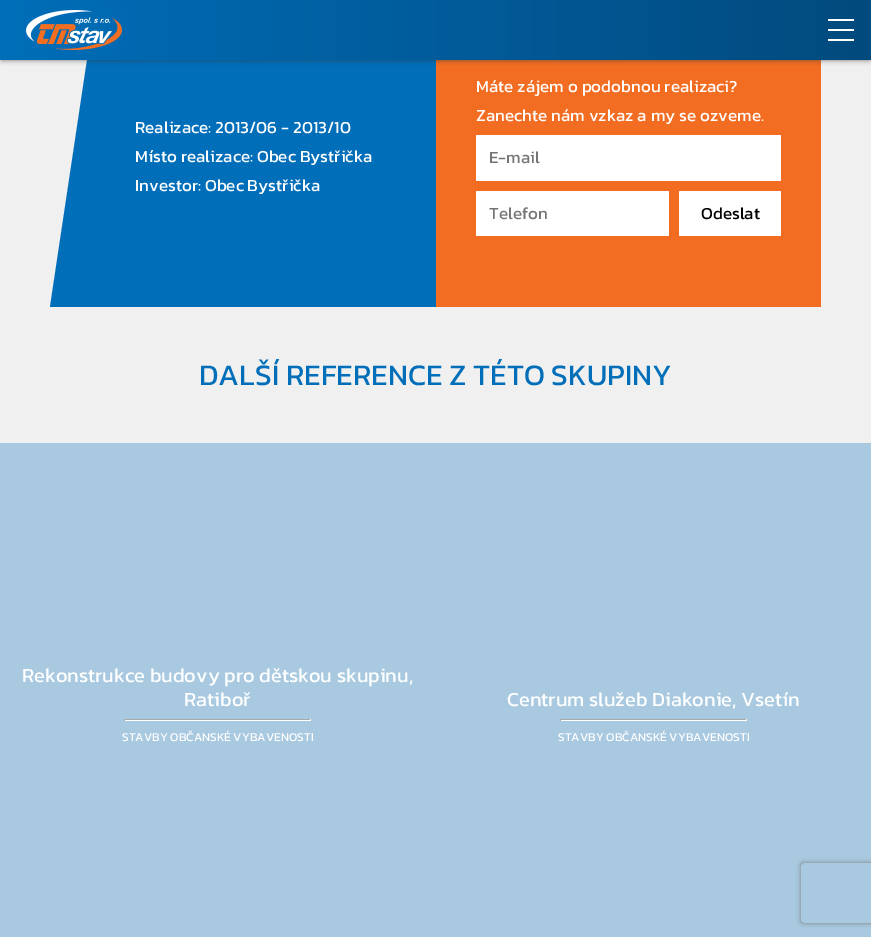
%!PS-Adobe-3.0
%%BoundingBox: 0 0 871 937
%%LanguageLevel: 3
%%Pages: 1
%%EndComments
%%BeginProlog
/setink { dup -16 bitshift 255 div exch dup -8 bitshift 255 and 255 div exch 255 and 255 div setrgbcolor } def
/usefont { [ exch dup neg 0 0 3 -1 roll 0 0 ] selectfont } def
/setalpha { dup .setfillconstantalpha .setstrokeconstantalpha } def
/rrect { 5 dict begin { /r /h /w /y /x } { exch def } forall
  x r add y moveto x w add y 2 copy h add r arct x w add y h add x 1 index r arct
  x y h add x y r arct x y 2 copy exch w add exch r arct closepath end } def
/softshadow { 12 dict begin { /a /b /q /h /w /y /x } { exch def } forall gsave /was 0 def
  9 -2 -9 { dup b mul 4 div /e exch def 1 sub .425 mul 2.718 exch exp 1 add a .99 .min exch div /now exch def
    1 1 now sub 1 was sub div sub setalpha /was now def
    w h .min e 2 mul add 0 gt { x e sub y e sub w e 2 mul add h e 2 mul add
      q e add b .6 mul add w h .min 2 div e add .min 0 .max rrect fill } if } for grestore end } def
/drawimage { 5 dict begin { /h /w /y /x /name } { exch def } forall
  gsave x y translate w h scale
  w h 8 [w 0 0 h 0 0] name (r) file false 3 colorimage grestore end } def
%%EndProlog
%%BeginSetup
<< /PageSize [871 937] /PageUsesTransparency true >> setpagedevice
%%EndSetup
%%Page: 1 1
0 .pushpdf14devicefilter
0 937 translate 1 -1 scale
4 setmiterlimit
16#F0F0F0 setink
0 0 871 937 rectfill
16#006EB9 setink
436 7 moveto 436 307 lineto 50 307 lineto 95 7 lineto closepath fill
16#F26D22 setink
436 60 385 247 rectfill
16#333333 setink
2 3 867 56 0 3 1 softshadow
gsave 0 0 moveto 871 0 lineto 871 60 lineto 0 60 lineto closepath clip newpath
<< /ShadingType 2 /ColorSpace /DeviceRGB /Coords [0 30 871 30] /Extend [true true] /Function << /FunctionType 2 /Domain [0 1] /C0 [0 0.431 0.725] /C1 [0.004 0.29 0.49] /N 1 >> >> shfill grestore
(img1.raw) 26 10 96 40 drawimage
[
    [828 19 26 2 16#FFFFFF]
    [828 29 26 2 16#FFFFFF]
    [828 39 26 2 16#FFFFFF]
] { aload pop setink rectfill } forall
/Kanit-Regular 17 usefont
[
    [(Realizace: 2013/06 - 2013/10) 135 133]
    [(Místo realizace: Obec Bystřička) 135 162]
    [(Investor: Obec Bystřička) 135 191]
    [(Máte zájem o podobnou realizaci?) 476 92]
    [(Zanechte nám vzkaz a my se ozveme.) 476 121]
] { aload pop moveto show } forall
476 135 305 46 rectfill
16#757575 setink
489 163 moveto (E-mail) show
16#FFFFFF setink
476 191 193 45 rectfill
16#757575 setink
489 219 moveto (Telefon) show
16#FFFFFF setink
679 191 102 45 rectfill
16#000000 setink
701 219 moveto (Odeslat) show
/Kanit-Regular 30 usefont
16#006EB9 setink
199 385 moveto (DALŠÍ REFERENCE Z TÉTO SKUPINY) show
16#A8C9E0 setink
0 443 871 326 rectfill
/Kanit-Regular 20 usefont
16#FFFFFF setink
22 682 moveto (Rekonstrukce budovy pro dětskou skupinu,) show
184 706 moveto (Ratiboř) show
[
    [124 719 187 1 16#AAAAAA]
    [310 719 1 2 16#FFFFFF]
    [124 720 187 1 16#FFFFFF]
    [124 719 1 2 16#AAAAAA]
] { aload pop setink rectfill } forall
/Kanit-Regular 12 usefont
16#FFFFFF setink
122 741 moveto (STAVBY OBČANSKÉ VYBAVENOSTI) show
/Kanit-Regular 20 usefont
507 706 moveto (Centrum služeb Diakonie, Vsetín) show
[
    [560 719 187 1 16#AAAAAA]
    [746 719 1 2 16#FFFFFF]
    [560 720 187 1 16#FFFFFF]
    [560 719 1 2 16#AAAAAA]
] { aload pop setink rectfill } forall
/Kanit-Regular 12 usefont
16#FFFFFF setink
558 741 moveto (STAVBY OBČANSKÉ VYBAVENOSTI) show
16#A8C9E0 setink
0 769 871 168 rectfill
gsave
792 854 moveto 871 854 lineto 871 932 lineto 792 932 lineto closepath 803 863 moveto 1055 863 lineto 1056 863 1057 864 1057 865 curveto 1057 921 lineto 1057 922 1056 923 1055 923 curveto 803 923 lineto 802 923 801 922 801 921 curveto 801 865 lineto 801 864 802 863 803 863 curveto closepath eoclip newpath
16#808080 setink
801 863 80 60 2 2.5 1 softshadow
grestore
.poppdf14devicefilter showpage
%%EOF
